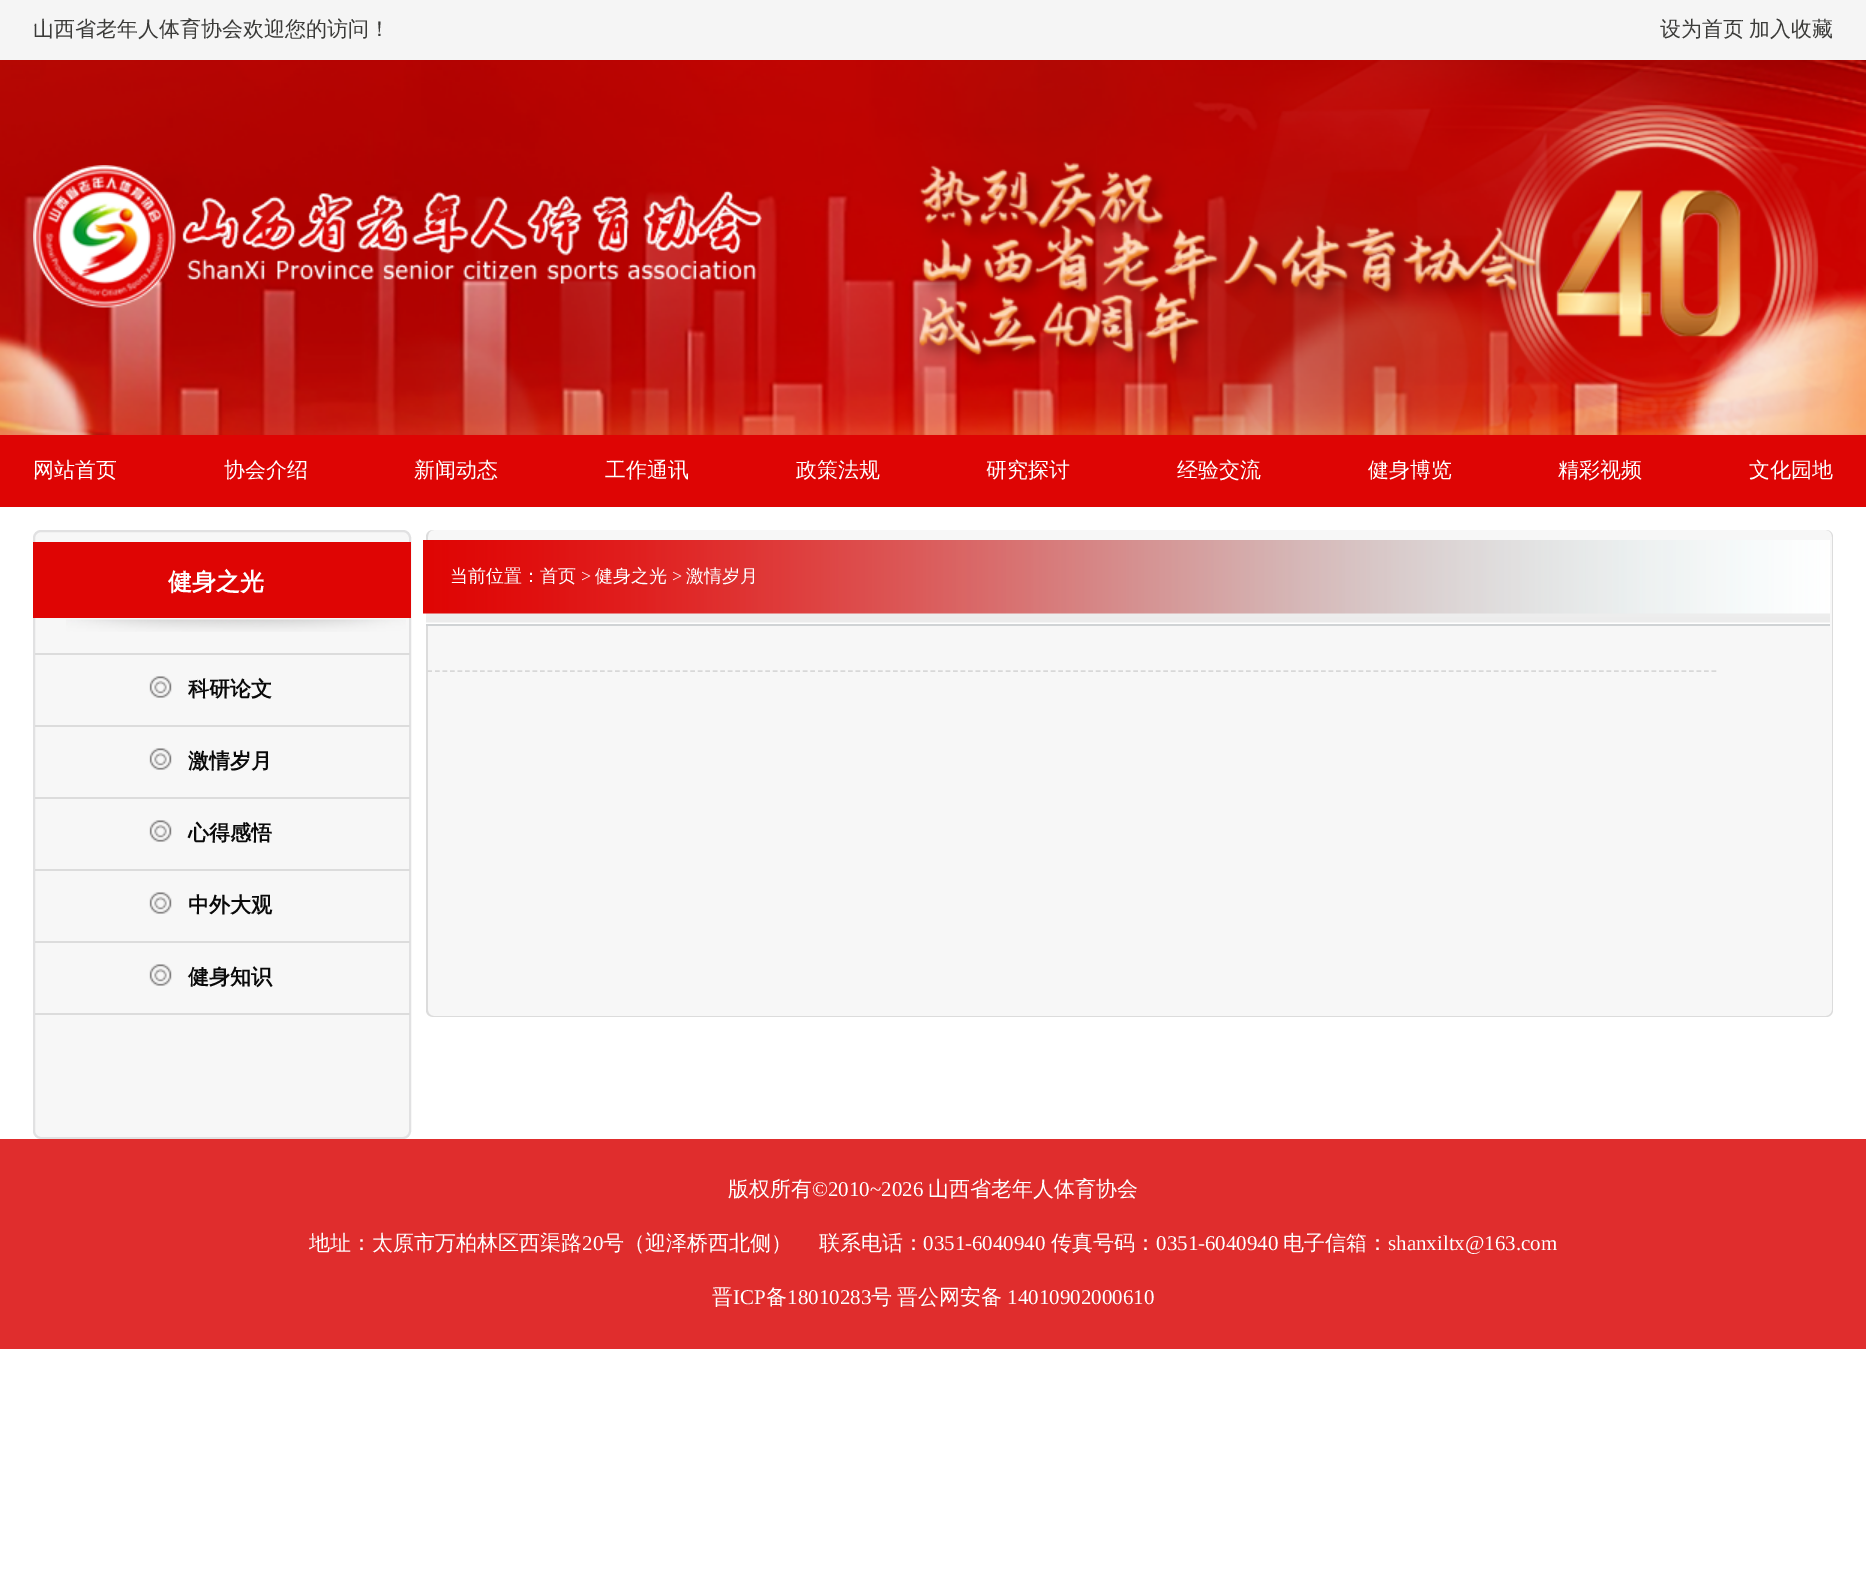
%!PS-Adobe-3.0
%%BoundingBox: 0 0 1866 1591
%%LanguageLevel: 3
%%Pages: 1
%%EndComments
%%BeginProlog
/setink { dup -16 bitshift 255 div exch dup -8 bitshift 255 and 255 div exch 255 and 255 div setrgbcolor } def
/usefont { [ exch dup neg 0 0 3 -1 roll 0 0 ] selectfont } def
/rrect { 5 dict begin { /r /h /w /y /x } { exch def } forall
  x r add y moveto x w add y 2 copy h add r arct x w add y h add x 1 index r arct
  x y h add x y r arct x y 2 copy exch w add exch r arct closepath end } def
/drawimage { 5 dict begin { /h /w /y /x /name } { exch def } forall
  gsave x y translate w h scale
  w h 8 [w 0 0 h 0 0] name (r) file false 3 colorimage grestore end } def
%%EndProlog
%%BeginSetup
<< /PageSize [1866 1591] >> setpagedevice
%%EndSetup
%%Page: 1 1
0 1591 translate 1 -1 scale
4 setmiterlimit
16#FFFFFF setink
0 0 1866 1591 rectfill
16#F5F5F5 setink
0 0 1866 60 rectfill
/WenQuanYiZenHei-Medium 21 usefont
16#3B3B39 setink
[
    [(山西省老年人体育协会欢迎您的访问！) 33 36]
    [(设为首页) 1660 36]
    [(加入收藏) 1749 36]
] { aload pop moveto show } forall
(img1.raw) 0 60 1866 375 drawimage
(img2.raw) 33 165 729 143 drawimage
16#DE0504 setink
0 435 1866 72 rectfill
16#FFFFFF setink
[
    [(网站首页) 33 477]
    [(协会介绍) 224 477]
    [(新闻动态) 414 477]
    [(工作通讯) 605 477]
    [(政策法规) 796 477]
    [(研究探讨) 986 477]
    [(经验交流) 1177 477]
    [(健身博览) 1368 477]
    [(精彩视频) 1558 477]
    [(文化园地) 1749 477]
] { aload pop moveto show } forall
16#F7F7F7 setink
34 531 376 607 7 rrect gsave fill grestore
16#E1E1E2 setink
2 setlinewidth
stroke
(img3.raw) 66 619 340 13 drawimage
16#DF0504 setink
33 542 378 76 rectfill
/WenQuanYiZenHei-Bold 24 usefont
16#FFFFFF setink
168 590 moveto (健身之光) show
16#DCDCDC setink
35 1013 375 2 rectfill
35 653 375 2 rectfill
(img4.raw) 149 676 23 22 drawimage
/WenQuanYiZenHei-Bold 21 usefont
16#0A0A0A setink
188 696 moveto (科研论文) show
16#DCDCDC setink
35 725 375 2 rectfill
(img4.raw) 149 748 23 22 drawimage
16#0A0A0A setink
188 768 moveto (激情岁月) show
16#DCDCDC setink
35 797 375 2 rectfill
(img4.raw) 149 820 23 22 drawimage
16#0A0A0A setink
188 840 moveto (心得感悟) show
16#DCDCDC setink
35 869 375 2 rectfill
(img4.raw) 149 892 23 22 drawimage
16#0A0A0A setink
188 912 moveto (中外大观) show
16#DCDCDC setink
35 941 375 2 rectfill
(img4.raw) 149 964 23 22 drawimage
16#0A0A0A setink
188 984 moveto (健身知识) show
16#F7F7F7 setink
426 530 1407 487 8 rrect fill
(img5.raw) 428 530 1403 2 drawimage
16#DCDCDC setink
434 530 moveto 1826 530 lineto 1830 530 1833 533 1833 537 curveto 1833 1010 lineto 1833 1014 1830 1017 1826 1017 curveto 434 1017 lineto 429 1017 426 1014 426 1010 curveto 426 537 lineto 426 533 429 530 434 530 curveto closepath 434 530 moveto 1826 530 lineto 1829 530 1832 533 1832 537 curveto 1832 1010 lineto 1832 1013 1829 1016 1826 1016 curveto 434 1016 lineto 430 1016 428 1013 428 1010 curveto 428 537 lineto 428 533 430 530 434 530 curveto closepath eofill
(img6.raw) 426 613 1404 11 drawimage
16#D0D3D5 setink
426 624 1404 2 rectfill
(img7.raw) 423 540 1407 74 drawimage
/WenQuanYiZenHei-Medium 18 usefont
16#FFFFFF setink
450 582 moveto (当前位置：首页) show
/LiberationSerif-Regular 18 usefont
581 582 moveto (>) show
/WenQuanYiZenHei-Medium 18 usefont
595 582 moveto (健身之光) show
/LiberationSerif-Regular 18 usefont
672 582 moveto (>) show
/WenQuanYiZenHei-Medium 18 usefont
686 582 moveto (激情岁月) show
16#D8D8D8 setink
1.5 setlinewidth
[4.5 3.01] 0 setdash
427.5 671 moveto 1717.5 671 lineto stroke
16#E02D2D setink
0 1139 1866 210 rectfill
/WenQuanYiZenHei-Medium 21 usefont
16#FFFFFF setink
728 1196 moveto (版权所有) show
/LiberationSerif-Regular 21 usefont
812 1196 moveto (©2010~2026) show
/WenQuanYiZenHei-Medium 21 usefont
928 1196 moveto (山西省老年人体育协会) show
309 1250 moveto (地址：太原市万柏林区西渠路) show
/LiberationSerif-Regular 21 usefont
582 1250 moveto (20) show
/WenQuanYiZenHei-Medium 21 usefont
603 1250 moveto (号（迎泽桥西北侧） 　联系电话：) show
/LiberationSerif-Regular 21 usefont
923 1250 moveto (0351-6040940) show
/WenQuanYiZenHei-Medium 21 usefont
1051 1250 moveto (传真号码：) show
/LiberationSerif-Regular 21 usefont
1156 1250 moveto (0351-6040940) show
/WenQuanYiZenHei-Medium 21 usefont
1283 1250 moveto (电子信箱：) show
/LiberationSerif-Regular 21 usefont
1388 1250 moveto (shanxiltx@163.com) show
/WenQuanYiZenHei-Medium 21 usefont
712 1304 moveto (晋) show
/LiberationSerif-Regular 21 usefont
733 1304 moveto (ICP) show
/WenQuanYiZenHei-Medium 21 usefont
766 1304 moveto (备) show
/LiberationSerif-Regular 21 usefont
787 1304 moveto (18010283) show
/WenQuanYiZenHei-Medium 21 usefont
871 1304 moveto (号) show
897 1304 moveto (晋公网安备) show
/LiberationSerif-Regular 21 usefont
1007 1304 moveto (14010902000610) show
showpage
%%EOF
